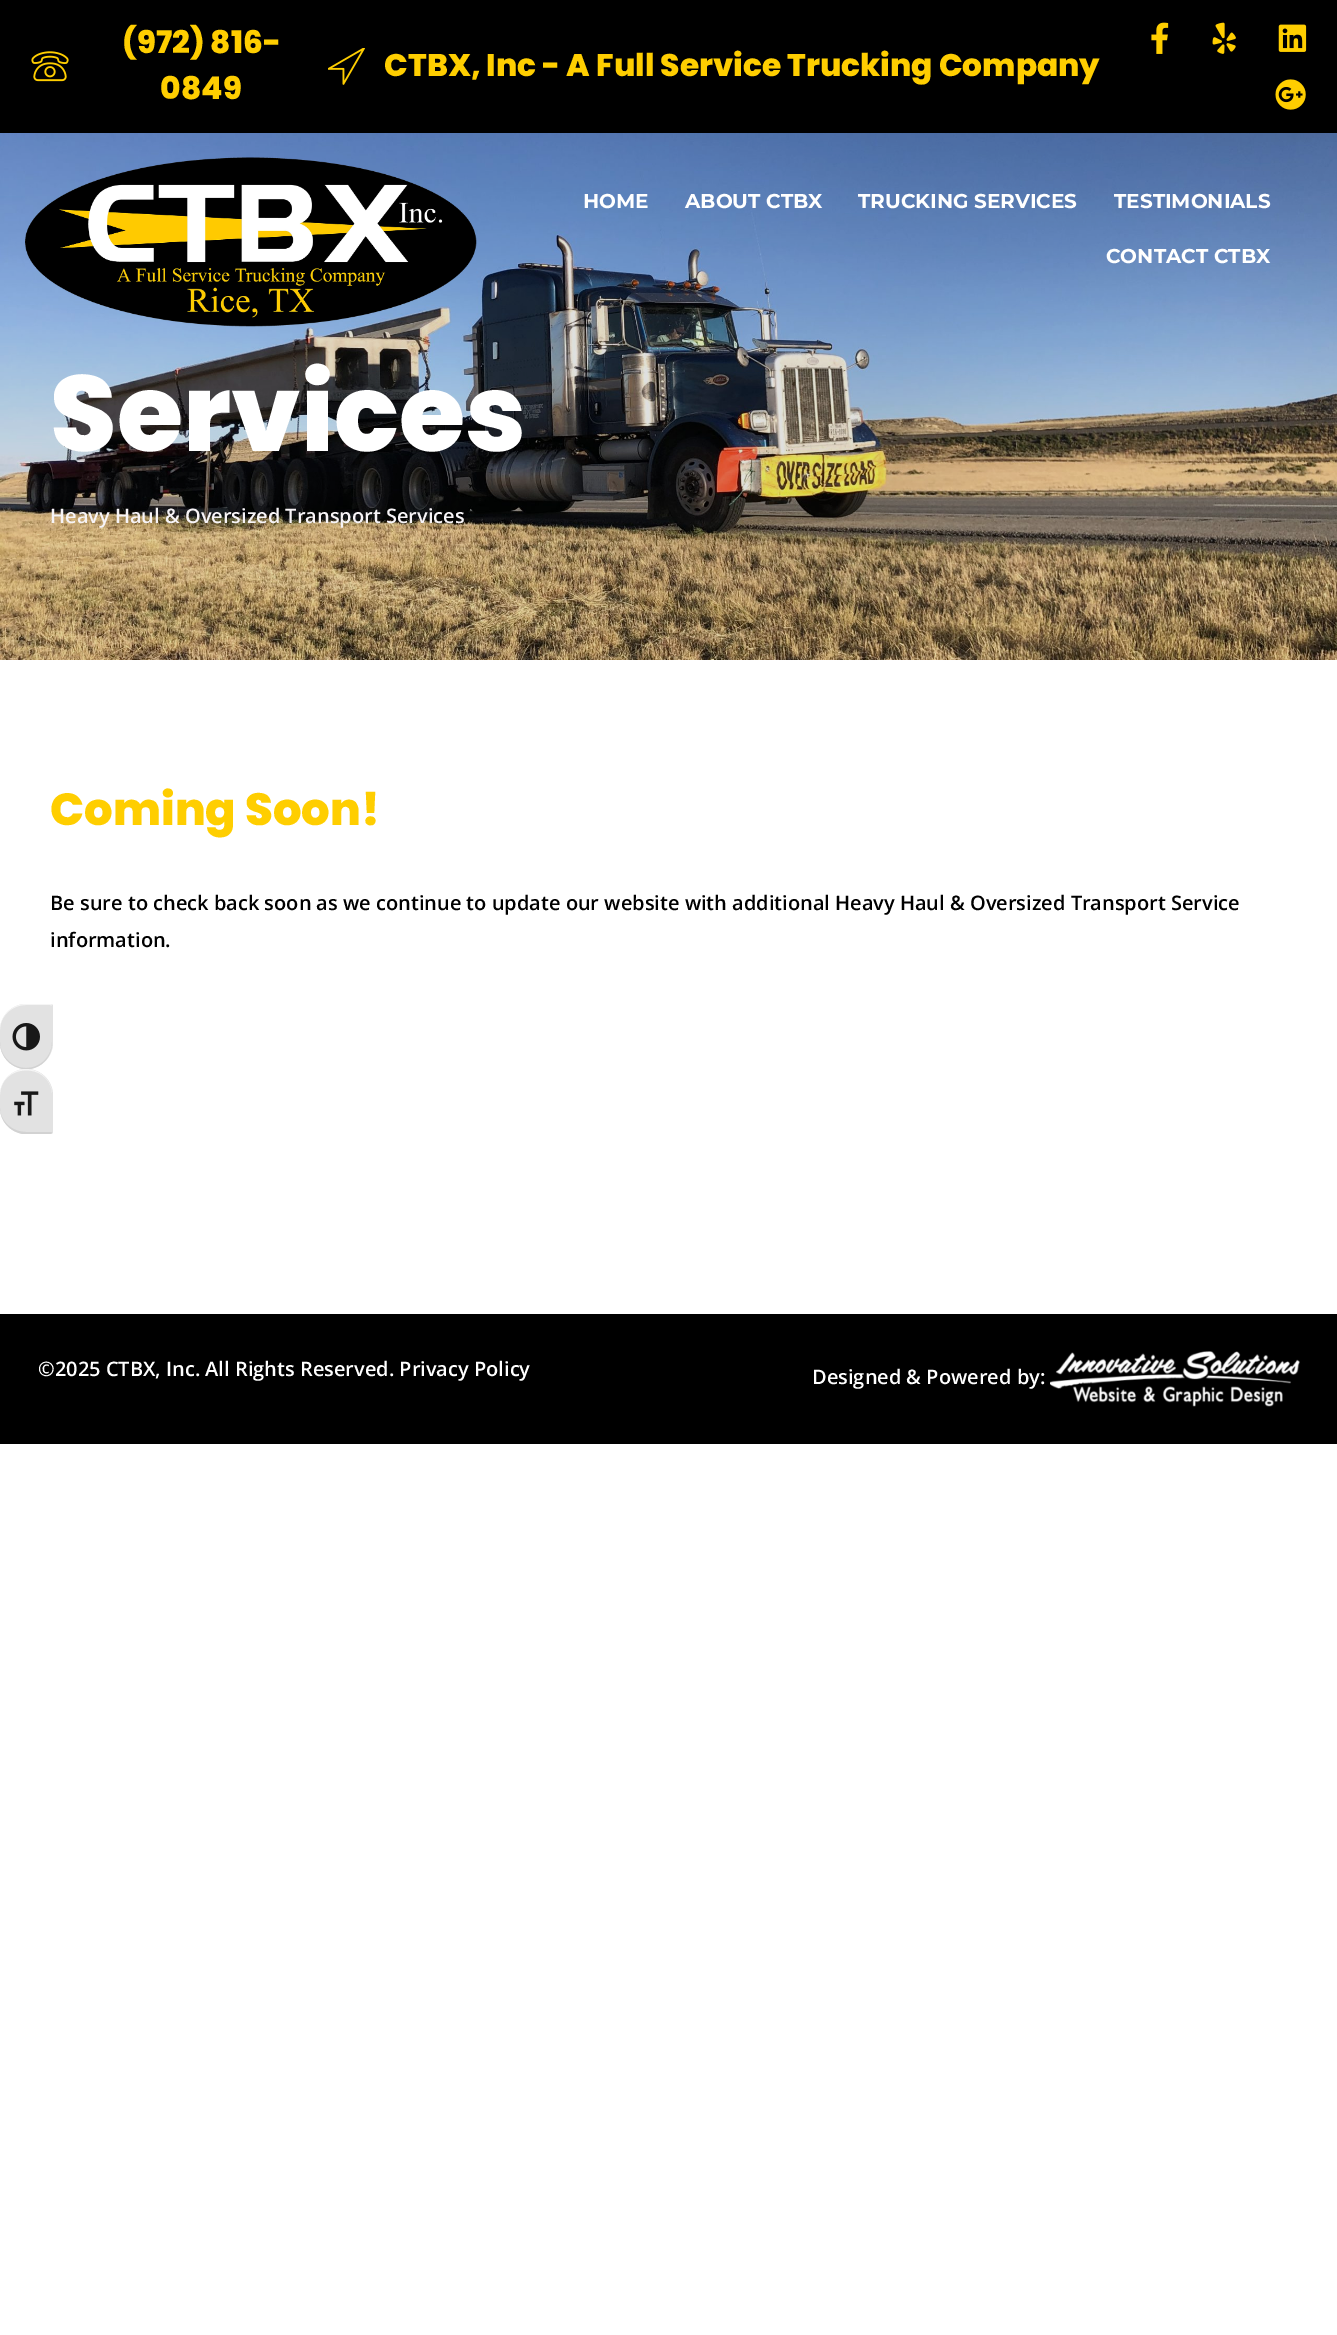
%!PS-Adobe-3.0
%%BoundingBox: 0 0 1337 2335
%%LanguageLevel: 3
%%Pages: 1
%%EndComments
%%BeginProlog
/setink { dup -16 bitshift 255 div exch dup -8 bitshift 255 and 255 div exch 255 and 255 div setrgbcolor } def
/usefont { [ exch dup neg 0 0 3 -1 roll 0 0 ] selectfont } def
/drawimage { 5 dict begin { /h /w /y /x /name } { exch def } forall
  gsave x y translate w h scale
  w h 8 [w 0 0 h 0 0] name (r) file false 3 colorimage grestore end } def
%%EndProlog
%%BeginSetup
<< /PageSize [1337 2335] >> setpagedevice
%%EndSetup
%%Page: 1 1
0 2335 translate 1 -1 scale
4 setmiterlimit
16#FFFFFF setink
0 0 1337 2335 rectfill
16#E2E2E2 setink
26.5 1004 moveto 51 1004 lineto 52 1004 53 1005 53 1006 curveto 53 1042.5 lineto 53 1057 41 1069 26.5 1069 curveto 12 1069 0 1057 0 1042.5 curveto 0 1030.5 lineto 0 1016 12 1004 26.5 1004 curveto closepath fill
16#F5F5F5 setink
26 1004 moveto 12 1004 0 1016 0 1030 curveto 0 1016 12 1005 26 1005 curveto 50 1005 lineto 52 1005 52 1005 52 1006 curveto 52 1005 52 1004 50 1004 curveto closepath fill
16#D2D2D2 setink
30 1069 moveto 43 1067 52 1056 52 1042 curveto 52 1056 41 1068 26 1068 curveto 12 1068 0 1056 0 1042 curveto 0 1056 10 1067 23 1069 curveto closepath fill
(img1.raw) 12 1023 28 28 drawimage
16#E2E2E2 setink
26.5 1069 moveto 41 1069 53 1081 53 1095.5 curveto 53 1132 lineto 53 1133 52 1134 51 1134 curveto 26.5 1134 lineto 12 1134 0 1122 0 1107.5 curveto 0 1095.5 lineto 0 1081 12 1069 26.5 1069 curveto closepath fill
16#F5F5F5 setink
26 1069 moveto 12 1069 0 1081 0 1095 curveto 0 1064 49 1061 52 1093 curveto 51 1080 40 1069 26 1069 curveto closepath fill
16#D2D2D2 setink
51 1134 moveto 52 1132 lineto 26 1132 lineto 12 1132 0 1121 0 1108 curveto 0 1121 10 1132 23 1134 curveto closepath fill
(img2.raw) 14 1091 25 25 drawimage
16#000000 setink
0 0 1337 133 rectfill
(img3.raw) 31 51 38 31 drawimage
/Poppins-ExtraBold 31.25 usefont
16#FFCE00 setink
122 53 moveto (\(972\) 816-) show
160 99 moveto (0849) show
(img4.raw) 328 48 37 37 drawimage
384 76 moveto (CTBX, Inc - A Full Service Trucking Company) show
(img5.raw) 1151 22 18 32 drawimage
(img6.raw) 1212 22 24 32 drawimage
(img7.raw) 1278 24 29 28 drawimage
(img8.raw) 1275 79 31 31 drawimage
(img10.raw) 0 133 1337 527 drawimage
(img9.raw) 25 157 452 170 drawimage
/Montserrat-Thin 20 usefont
16#FFFFFF setink
[
    [(HOME) 583 208]
    [(ABOUT CTBX) 685 208]
    [(TRUCKING SERVICES) 858 208]
    [(TESTIMONIALS) 1114 208]
    [(CONTACT CTBX) 1106 263]
] { aload pop moveto show } forall
/Poppins-ExtraBold 107.5 usefont
50 451 moveto (Services) show
/OpenSans-SemiBold 20 usefont
16#F7F4F7 setink
50 523 moveto (Heavy Haul & Oversized Transport Services) show
/Poppins-ExtraBold 45 usefont
16#FFCE00 setink
50 825 moveto (Coming Soon!) show
/OpenSans-SemiBold 20 usefont
16#000000 setink
50 910 moveto (Be sure to check back soon as we continue to update our website with additional Heavy Haul & Oversized Transport Service) show
50 947 moveto (information.) show
0 1314 1337 130 rectfill
16#FFFFFF setink
38 1376 moveto (©2025 CTBX, Inc. All Rights Reserved. Privacy Policy) show
812 1384 moveto (Designed & Powered by:) show
(img11.raw) 1050 1351 250 56 drawimage
showpage
%%EOF
